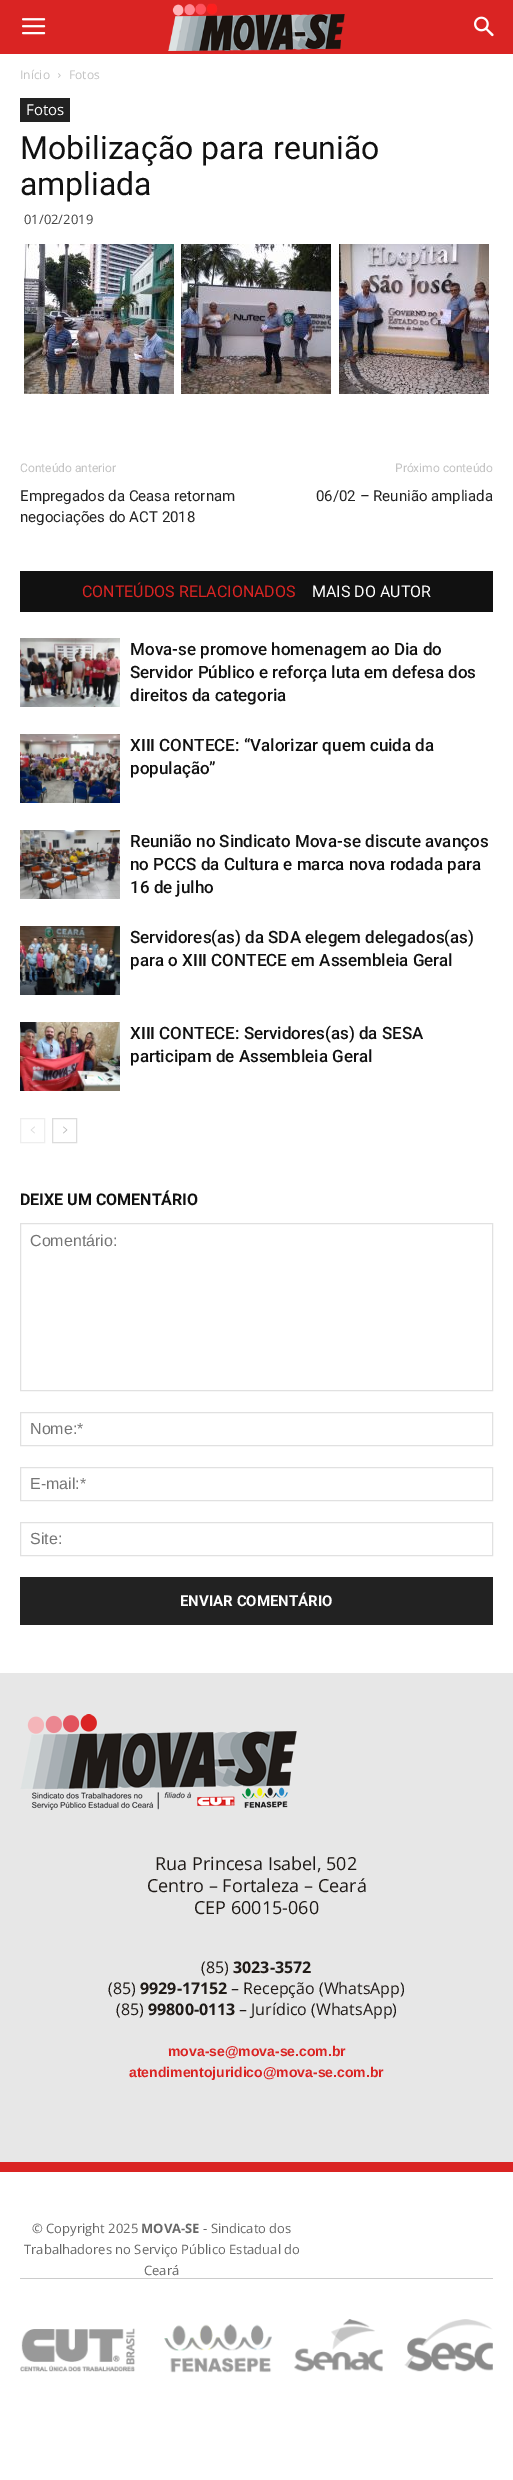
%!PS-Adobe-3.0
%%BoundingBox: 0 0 513 2480
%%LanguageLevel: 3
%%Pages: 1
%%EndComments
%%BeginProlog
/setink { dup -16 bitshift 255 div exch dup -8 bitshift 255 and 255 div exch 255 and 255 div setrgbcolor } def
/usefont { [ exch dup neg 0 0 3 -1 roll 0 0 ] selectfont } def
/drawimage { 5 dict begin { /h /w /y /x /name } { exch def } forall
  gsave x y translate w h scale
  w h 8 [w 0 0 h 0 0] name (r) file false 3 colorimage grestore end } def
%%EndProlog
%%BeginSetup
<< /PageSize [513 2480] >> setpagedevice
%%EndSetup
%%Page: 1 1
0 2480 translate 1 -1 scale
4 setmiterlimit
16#FFFFFF setink
0 0 513 2480 rectfill
16#DA2423 setink
0 0 513 54 rectfill
(img1.raw) 22 18 24 17 drawimage
(img2.raw) 168 3 177 48 drawimage
(img3.raw) 474 16 20 21 drawimage
/OpenSans-Regular 12 usefont
16#C3C3C3 setink
20 79 moveto (Início) show
(img4.raw) 58 73 3 5 drawimage
69 79 moveto (Fotos) show
16#222222 setink
20 98 50 24 rectfill
/OpenSans-Regular 15 usefont
16#FFFFFF setink
26 115 moveto (Fotos) show
/Roboto-Regular 32 usefont
16#111111 setink
20 159 moveto (Mobilização para reunião) show
20 195 moveto (ampliada) show
/OpenSans-Regular 13 usefont
16#444444 setink
24 224 moveto (01/02/2019) show
(img5.raw) 24 244 150 150 drawimage
(img6.raw) 181 244 150 150 drawimage
(img7.raw) 339 244 150 150 drawimage
/Roboto-Regular 12 usefont
16#C3C3C3 setink
20 472 moveto (Conteúdo anterior) show
/Roboto-Regular 15 usefont
16#222222 setink
20 501 moveto (Empregados da Ceasa retornam) show
20 522 moveto (negociações do ACT 2018) show
/Roboto-Regular 12 usefont
16#C3C3C3 setink
395 472 moveto (Próximo conteúdo) show
/Roboto-Regular 15 usefont
16#222222 setink
316 501 moveto (06/02 – Reunião ampliada) show
16#111111 setink
20 571 473 41 rectfill
/Roboto-Regular 16 usefont
16#DA2423 setink
82 597 moveto (CONTEÚDOS RELACIONADOS) show
16#FFFFFF setink
312 597 moveto (MAIS DO AUTOR) show
(img8.raw) 20 638 100 69 drawimage
/Roboto-Medium 17 usefont
16#111111 setink
[
    [(Mova-se promove homenagem ao Dia do) 130 655]
    [(Servidor Público e reforça luta em defesa dos) 130 678]
    [(direitos da categoria) 130 701]
] { aload pop moveto show } forall
(img9.raw) 20 734 100 69 drawimage
130 751 moveto (XIII CONTECE: “Valorizar quem cuida da) show
130 774 moveto (população”) show
(img10.raw) 20 830 100 69 drawimage
[
    [(Reunião no Sindicato Mova-se discute avanços) 130 847]
    [(no PCCS da Cultura e marca nova rodada para) 130 870]
    [(16 de julho) 130 893]
] { aload pop moveto show } forall
(img11.raw) 20 926 100 69 drawimage
130 943 moveto (Servidores\(as\) da SDA elegem delegados\(as\)) show
130 966 moveto (para o XIII CONTECE em Assembleia Geral) show
(img12.raw) 20 1022 100 69 drawimage
130 1039 moveto (XIII CONTECE: Servidores\(as\) da SESA) show
130 1062 moveto (participam de Assembleia Geral) show
16#EEEEEE setink
20.5 1118.5 24 24 rectstroke
(img13.raw) 30 1126 5 8 drawimage
16#DCDCDC setink
52.5 1118.5 24 24 rectstroke
(img14.raw) 63 1126 5 8 drawimage
/Roboto-Bold 16 usefont
16#111111 setink
20 1205 moveto (DEIXE UM COMENTÁRIO) show
16#E1E1E1 setink
20.5 1223.5 472 167 rectstroke
/LiberationSans-Regular 16 usefont
16#757575 setink
30 1246 moveto (Comentário:) show
16#E1E1E1 setink
20.5 1412.5 472 33 rectstroke
16#757575 setink
30 1434 moveto (Nome:*) show
16#E1E1E1 setink
20.5 1467.5 472 33 rectstroke
16#757575 setink
30 1489 moveto (E-mail:*) show
16#E1E1E1 setink
20.5 1522.5 472 33 rectstroke
16#757575 setink
30 1544 moveto (Site:) show
16#222222 setink
20 1577 473 48 rectfill
/Roboto-Bold 15 usefont
16#FFFFFF setink
180 1606 moveto (ENVIAR COMENTÁRIO) show
16#E7E7E7 setink
0 1673 513 489 rectfill
(img15.raw) 20 1714 277 96 drawimage
/OpenSans-Regular 18 usefont
16#1F1A17 setink
[
    [(Rua Princesa Isabel, 502) 155 1870]
    [(Centro – Fortaleza – Ceará) 147 1892]
    [(CEP 60015-060) 194 1914]
] { aload pop moveto show } forall
/OpenSans-Regular 16 usefont
201 1973 moveto (\(85\)) show
/OpenSans-Bold 16 usefont
233 1973 moveto (3023-3572) show
/OpenSans-Regular 16 usefont
108 1994 moveto (\(85\)) show
/OpenSans-Bold 16 usefont
140 1994 moveto (9929-17152) show
/OpenSans-Regular 16 usefont
231 1994 moveto (– Recepção \(WhatsApp\)) show
116 2015 moveto (\(85\)) show
/OpenSans-Bold 16 usefont
148 2015 moveto (99800-0113) show
/OpenSans-Regular 16 usefont
239 2015 moveto (– Jurídico \(WhatsApp\)) show
/LiberationSans-Bold 14 usefont
16#DA2423 setink
168 2056 moveto (mova-se@mova-se.com.br) show
129 2077 moveto (atendimentojuridico@mova-se.com.br) show
0 2162 513 10 rectfill
/OpenSans-Regular 13 usefont
16#666666 setink
32 2233 moveto (© Copyright 2025) show
/OpenSans-Bold 13 usefont
141 2233 moveto (MOVA-SE) show
/OpenSans-Regular 13 usefont
[
    [(- Sindicato dos) 203 2233]
    [(Trabalhadores no Serviço Público Estadual do) 24 2254]
    [(Ceará) 144 2275]
] { aload pop moveto show } forall
16#CCCCCC setink
20 2278 473 1 rectfill
(img16.raw) 20 2319 473 54 drawimage
showpage
%%EOF
